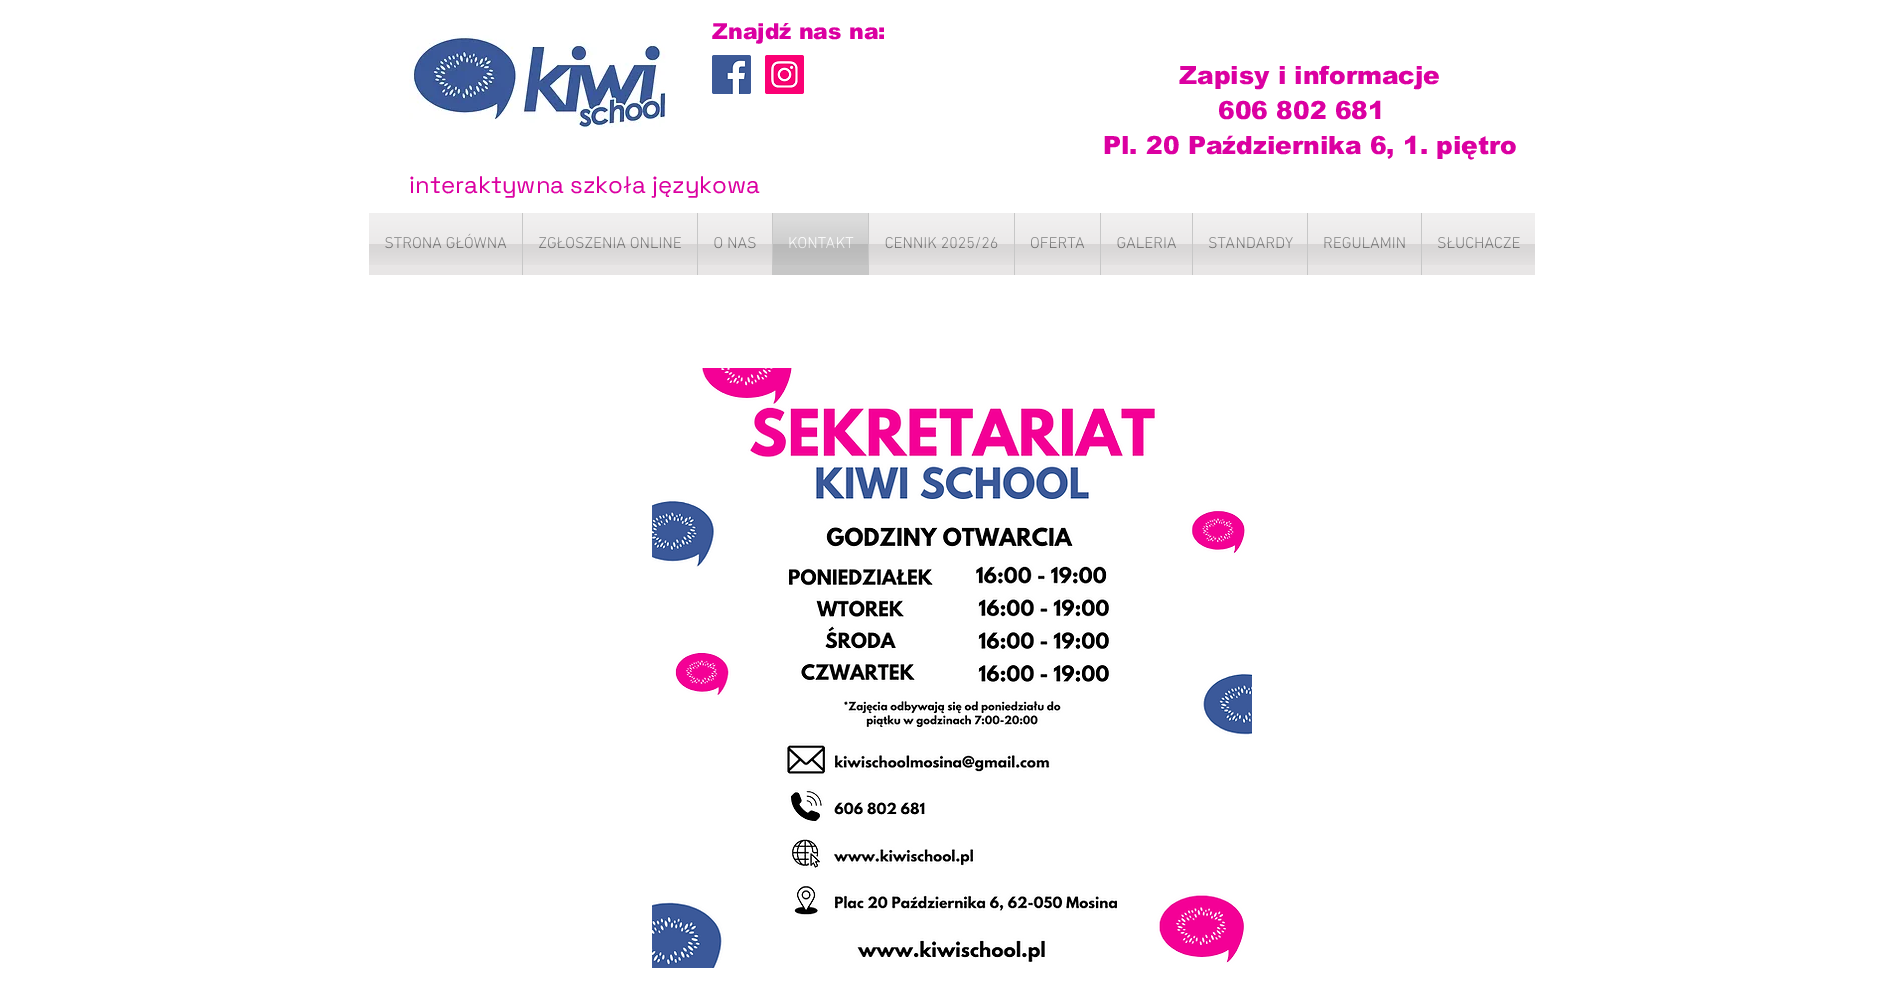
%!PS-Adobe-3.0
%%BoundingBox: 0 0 1904 997
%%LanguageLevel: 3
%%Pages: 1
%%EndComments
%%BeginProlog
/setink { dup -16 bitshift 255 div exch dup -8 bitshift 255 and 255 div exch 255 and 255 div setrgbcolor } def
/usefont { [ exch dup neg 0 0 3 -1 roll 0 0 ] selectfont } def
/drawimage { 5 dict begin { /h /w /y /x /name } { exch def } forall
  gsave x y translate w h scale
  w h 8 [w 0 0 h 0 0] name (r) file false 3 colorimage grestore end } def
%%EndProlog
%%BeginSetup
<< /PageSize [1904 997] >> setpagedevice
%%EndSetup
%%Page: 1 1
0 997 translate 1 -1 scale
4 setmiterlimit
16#FFFFFF setink
0 0 1904 997 rectfill
(img1.raw) 409 35 257 93 drawimage
/arial-Black 22 usefont
16#DB00A1 setink
712 39 moveto (Znajdź nas na:) show
(img2.raw) 712 55 39 39 drawimage
(img3.raw) 765 55 39 39 drawimage
/arial-Black 25 usefont
[
    [(Zapisy i informacje) 1179 84]
    [(606 802 681) 1218 119]
    [(Pl. 20 Października 6, 1. piętro) 1103 154]
] { aload pop moveto show } forall
/SpaceGrotesk-Regular 24 usefont
409 193 moveto (interaktywna szkoła językowa) show
16#E8E6E6 setink
369 213 153 62 rectfill
/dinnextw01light-Light 16 usefont
16#757575 setink
384 248 moveto (STRONA GŁÓWNA) show
(img4.raw) 369 213 153 52 drawimage
16#E8E6E6 setink
523 213 174 62 rectfill
16#C7C7C7 setink
522 213 1 62 rectfill
16#757575 setink
538 248 moveto (ZGŁOSZENIA ONLINE) show
(img5.raw) 523 213 174 52 drawimage
16#E8E6E6 setink
698 213 74 62 rectfill
16#C7C7C7 setink
697 213 1 62 rectfill
16#757575 setink
713 248 moveto (O NAS) show
(img6.raw) 698 213 74 52 drawimage
16#C7C7C7 setink
772 213 97 62 rectfill
16#FFFFFF setink
788 248 moveto (KONTAKT) show
(img7.raw) 773 213 95 52 drawimage
16#E8E6E6 setink
869 213 145 62 rectfill
16#757575 setink
885 248 moveto (CENNIK 2025/26) show
(img8.raw) 869 213 145 52 drawimage
16#E8E6E6 setink
1015 213 85 62 rectfill
16#C7C7C7 setink
1014 213 1 62 rectfill
16#757575 setink
1030 248 moveto (OFERTA) show
(img9.raw) 1015 213 85 52 drawimage
16#E8E6E6 setink
1101 213 91 62 rectfill
16#C7C7C7 setink
1100 213 1 62 rectfill
16#757575 setink
1117 248 moveto (GALERIA) show
(img10.raw) 1101 213 91 52 drawimage
16#E8E6E6 setink
1193 213 114 62 rectfill
16#C7C7C7 setink
1192 213 1 62 rectfill
16#757575 setink
1208 248 moveto (STANDARDY) show
(img11.raw) 1193 213 114 52 drawimage
16#E8E6E6 setink
1308 213 113 62 rectfill
16#C7C7C7 setink
1307 213 1 62 rectfill
16#757575 setink
1323 248 moveto (REGULAMIN) show
(img12.raw) 1308 213 113 52 drawimage
16#E8E6E6 setink
1422 213 113 62 rectfill
16#C7C7C7 setink
1421 213 1 62 rectfill
16#757575 setink
1437 248 moveto (SŁUCHACZE) show
(img13.raw) 1422 213 113 52 drawimage
(img14.raw) 652 368 600 600 drawimage
showpage
%%EOF
